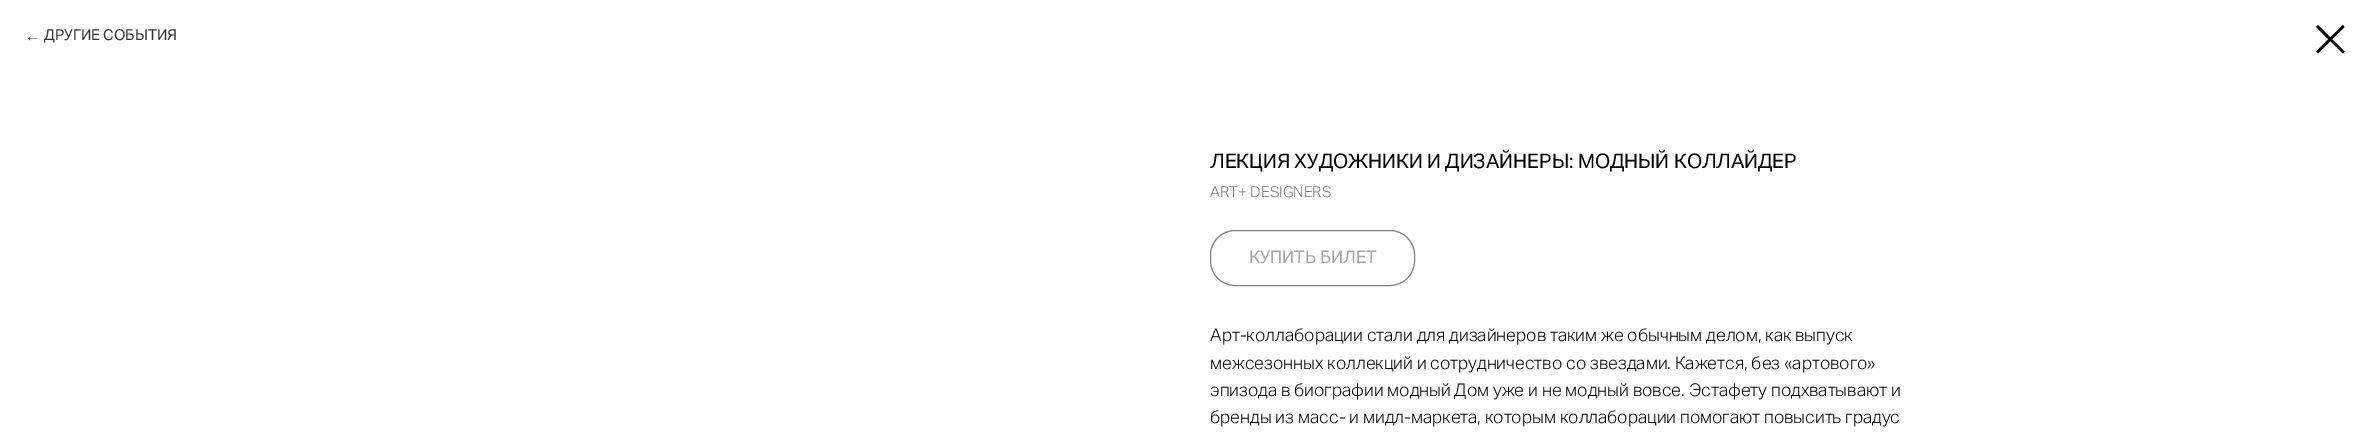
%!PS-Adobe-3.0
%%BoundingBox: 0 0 2369 433
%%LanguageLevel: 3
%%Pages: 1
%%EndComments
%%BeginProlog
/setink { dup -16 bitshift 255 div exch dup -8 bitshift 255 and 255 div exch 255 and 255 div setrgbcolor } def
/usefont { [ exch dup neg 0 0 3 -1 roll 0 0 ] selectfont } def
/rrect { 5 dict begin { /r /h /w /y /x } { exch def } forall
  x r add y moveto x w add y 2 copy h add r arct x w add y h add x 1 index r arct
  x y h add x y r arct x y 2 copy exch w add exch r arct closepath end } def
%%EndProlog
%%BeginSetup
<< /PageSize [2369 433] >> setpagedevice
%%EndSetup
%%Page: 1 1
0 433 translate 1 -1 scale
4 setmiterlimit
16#FFFFFF setink
0 0 2369 433 rectfill
/LiberationSans-Regular 15 usefont
16#333333 setink
25 41 moveto (←) show
/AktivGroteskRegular-Regular 15 usefont
44 40 moveto (ДРУГИЕ СОБЫТИЯ) show
16#000000 setink
2316 27 moveto 2318 25 lineto 2344.5 51.5 lineto 2343 53.5 lineto closepath eofill
2343 25 moveto 2344.5 27 lineto 2318 53.5 lineto 2316 51.5 lineto closepath eofill
/AktivGroteskRegular-Regular 20 usefont
1210 168 moveto (ЛЕКЦИЯ ХУДОЖНИКИ И ДИЗАЙНЕРЫ: МОДНЫЙ КОЛЛАЙДЕР) show
/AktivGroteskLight-Light 15 usefont
16#777777 setink
1210 197 moveto (ART+ DESIGNERS) show
16#808080 setink
1210.5 230.5 204 55 24.5 rrect stroke
/AktivGroteskRegular-Regular 17.5 usefont
16#A6A6A6 setink
1249 263 moveto (КУПИТЬ БИЛЕТ) show
/AktivGroteskLight-Light 17.5 usefont
16#000000 setink
[
    [(Арт-коллаборации стали для дизайнеров таким же обычным делом, как выпуск) 1210 341]
    [(межсезонных коллекций и сотрудничество со звездами. Кажется, без «артового») 1210 369]
    [(эпизода в биографии модный Дом уже и не модный вовсе. Эстафету подхватывают и) 1210 396]
    [(бренды из масс- и мидл-маркета, которым коллаборации помогают повысить градус) 1210 423]
] { aload pop moveto show } forall
showpage
%%EOF
